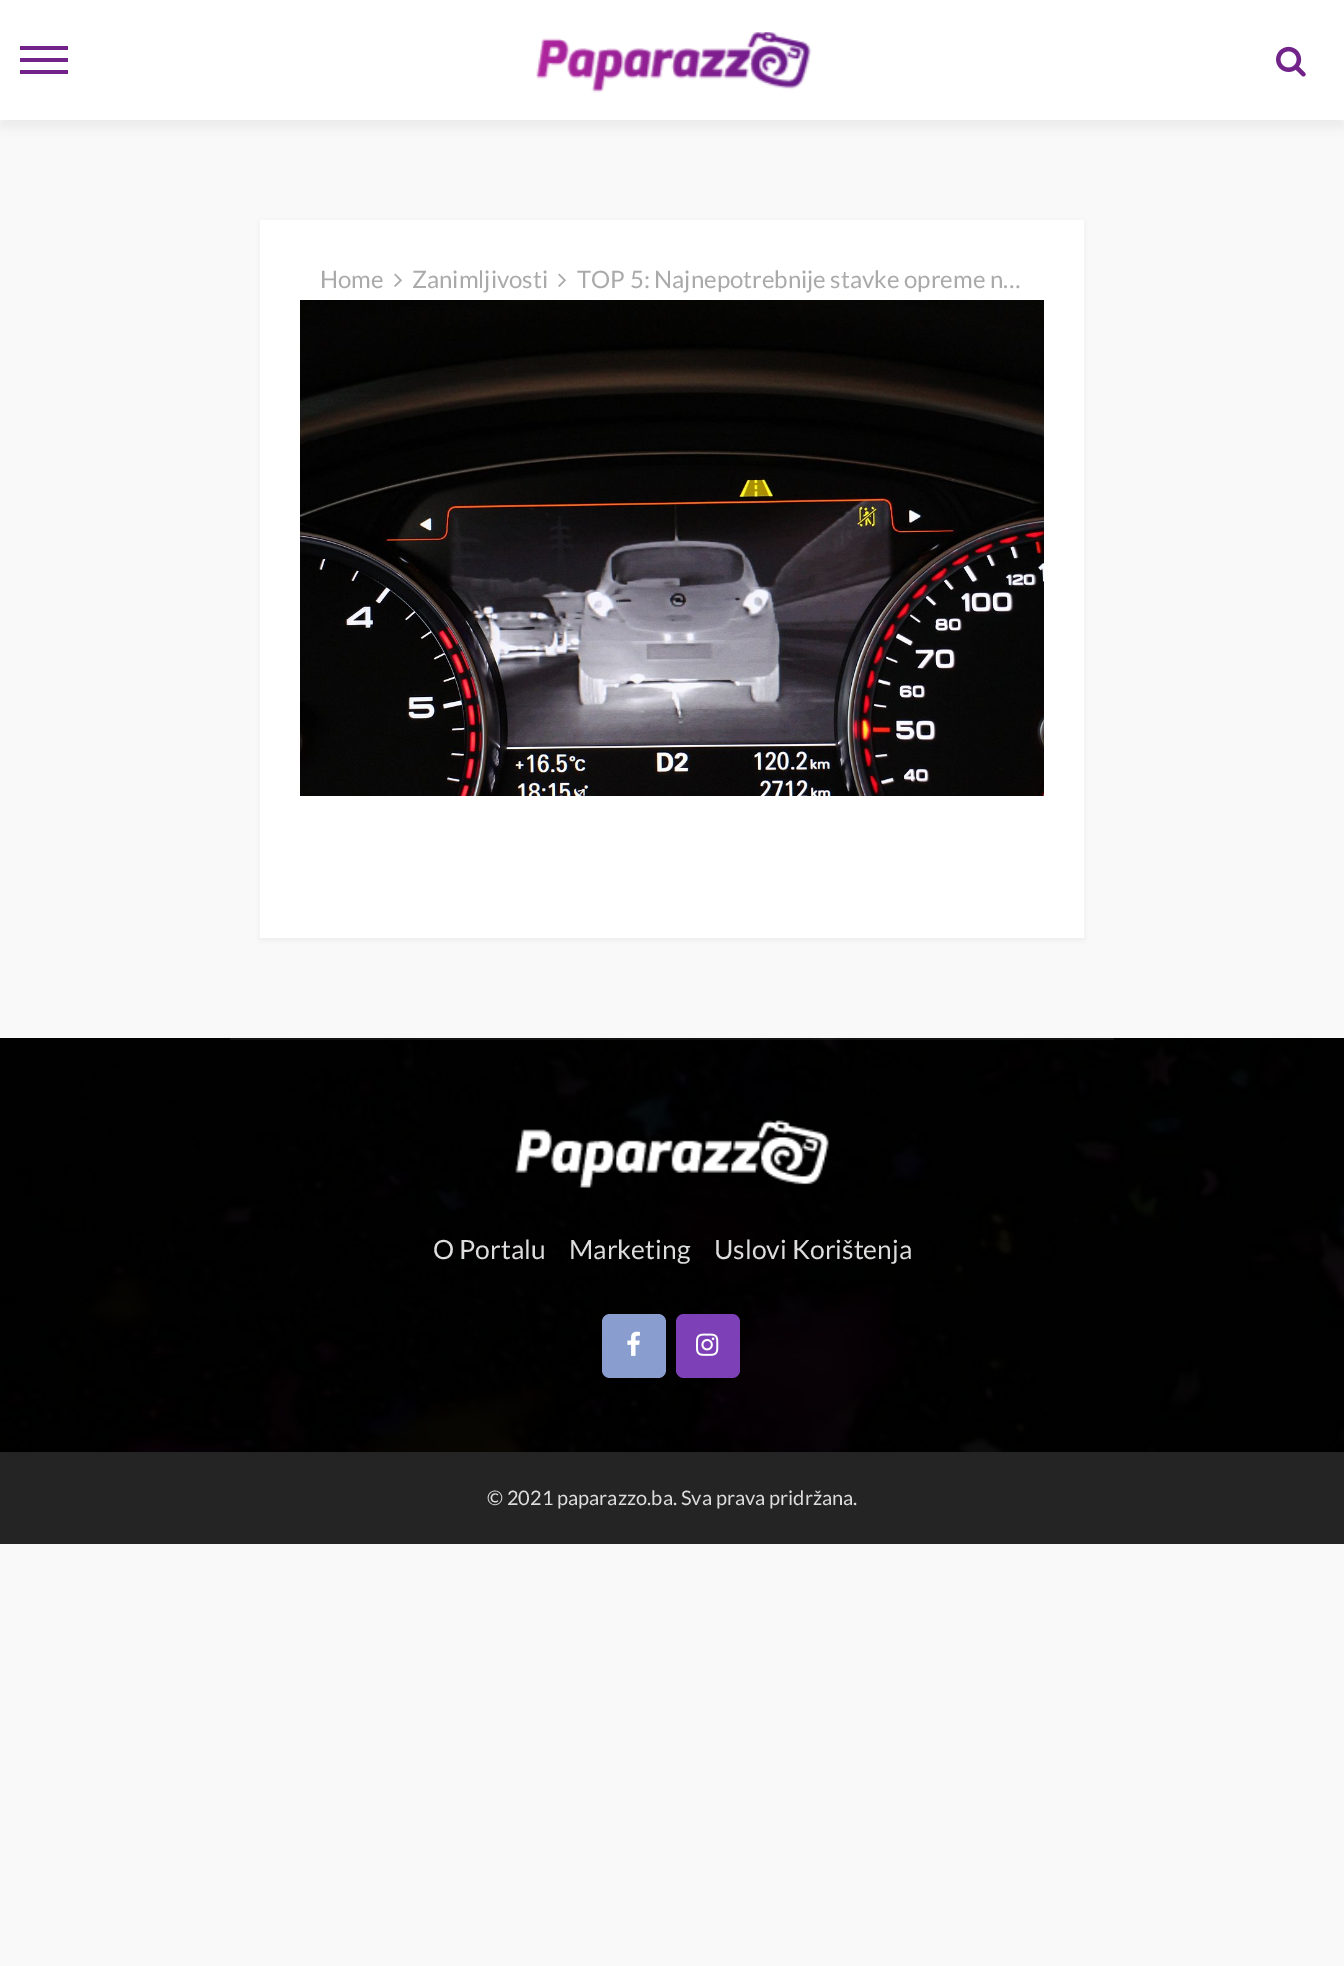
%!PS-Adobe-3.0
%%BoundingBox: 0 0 1344 1966
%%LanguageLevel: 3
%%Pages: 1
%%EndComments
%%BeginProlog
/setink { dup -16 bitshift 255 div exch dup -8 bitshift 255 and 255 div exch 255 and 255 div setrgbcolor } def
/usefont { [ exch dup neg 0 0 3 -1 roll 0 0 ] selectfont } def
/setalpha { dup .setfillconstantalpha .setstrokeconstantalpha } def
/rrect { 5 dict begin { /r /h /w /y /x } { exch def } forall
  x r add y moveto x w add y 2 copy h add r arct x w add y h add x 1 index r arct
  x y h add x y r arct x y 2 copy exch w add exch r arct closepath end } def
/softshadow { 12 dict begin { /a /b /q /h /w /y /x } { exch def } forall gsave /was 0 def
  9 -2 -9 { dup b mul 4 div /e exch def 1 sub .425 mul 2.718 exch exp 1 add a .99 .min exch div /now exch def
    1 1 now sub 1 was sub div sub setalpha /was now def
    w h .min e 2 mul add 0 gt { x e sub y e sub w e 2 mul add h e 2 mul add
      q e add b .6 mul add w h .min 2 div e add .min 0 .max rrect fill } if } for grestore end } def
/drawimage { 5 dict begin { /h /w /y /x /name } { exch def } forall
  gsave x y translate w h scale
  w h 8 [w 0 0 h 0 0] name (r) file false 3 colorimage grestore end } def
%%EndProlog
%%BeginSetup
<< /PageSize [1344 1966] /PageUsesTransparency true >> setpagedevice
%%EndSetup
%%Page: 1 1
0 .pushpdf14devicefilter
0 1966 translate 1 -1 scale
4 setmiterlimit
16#F9F9F9 setink
0 0 1344 1966 rectfill
16#1C1C1C setink
0 8 1344 120 0 6 0.05 softshadow
[
    [0 0 1344 120 16#FFFFFF]
    [20 58 48 4 16#722389]
    [20 46 48 4 16#722389]
    [20 70 48 4 16#722389]
] { aload pop setink rectfill } forall
(img1.raw) 536 32 276 61 drawimage
(img2.raw) 1276 46 30 31 drawimage
16#1C1C1C setink
260 222 824 718 0 3 0.05 softshadow
16#FFFFFF setink
260 220 824 718 rectfill
/Lato-Regular 24 usefont
16#AAAAAA setink
320 288 moveto (Home) show
(img3.raw) 394 273 8 14 drawimage
412 288 moveto (Zanimljivosti) show
(img3.raw) 558 273 8 14 drawimage
577 288 moveto (TOP 5: Najnepotrebnije stavke opreme n…) show
(img4.raw) 300 300 744 496 drawimage
(img5.raw) 0 1038 1344 414 drawimage
0.07 setalpha
16#FFFFFF setink
230 1038 884 2 rectfill
1 setalpha
(img6.raw) 515 1120 314 68 drawimage
/Lato-Regular 26.5 usefont
16#DDDDDD setink
[
    [(O Portalu) 433 1259]
    [(Marketing) 569 1259]
    [(Uslovi Korištenja) 714 1259]
] { aload pop moveto show } forall
16#899DCE setink
602 1314 64 64 8 rrect fill
(img7.raw) 627 1331 13 25 drawimage
16#7E40B6 setink
676 1314 64 64 8 rrect fill
(img8.raw) 696 1333 23 23 drawimage
16#242424 setink
0 1452 1344 92 rectfill
/Lato-Regular 20 usefont
16#DDDDDD setink
487 1505 moveto (© 2021 paparazzo.ba. Sva prava pridržana.) show
.poppdf14devicefilter showpage
%%EOF
